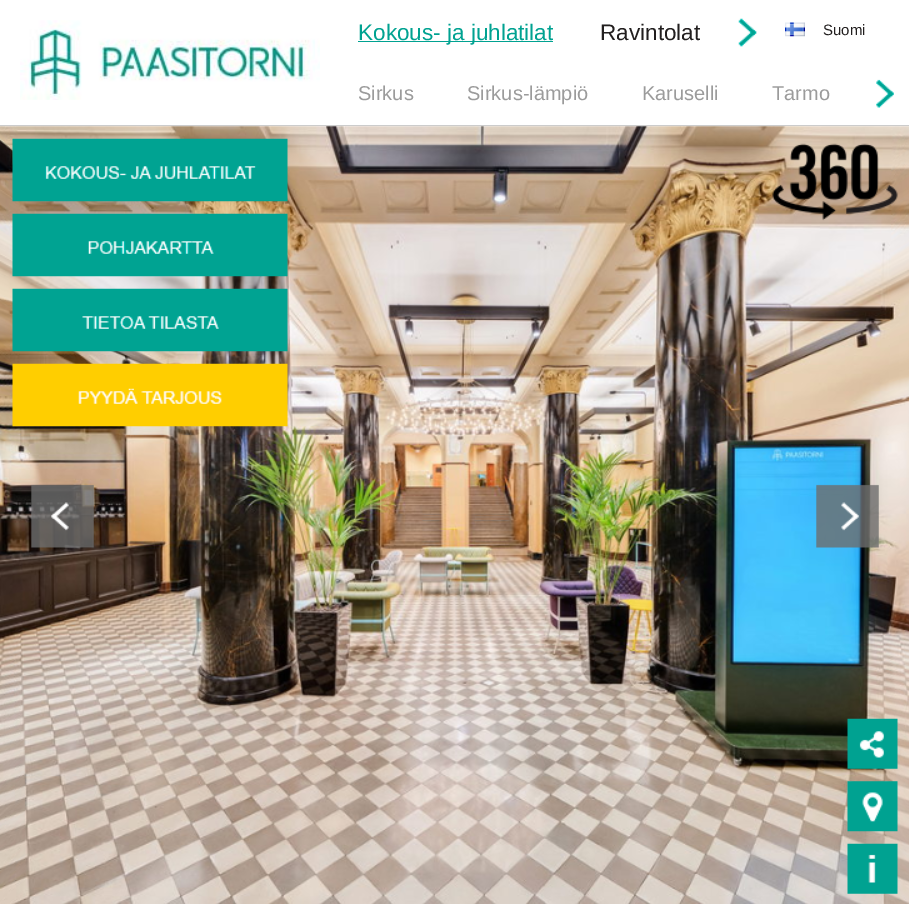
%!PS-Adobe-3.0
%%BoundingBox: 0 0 909 904
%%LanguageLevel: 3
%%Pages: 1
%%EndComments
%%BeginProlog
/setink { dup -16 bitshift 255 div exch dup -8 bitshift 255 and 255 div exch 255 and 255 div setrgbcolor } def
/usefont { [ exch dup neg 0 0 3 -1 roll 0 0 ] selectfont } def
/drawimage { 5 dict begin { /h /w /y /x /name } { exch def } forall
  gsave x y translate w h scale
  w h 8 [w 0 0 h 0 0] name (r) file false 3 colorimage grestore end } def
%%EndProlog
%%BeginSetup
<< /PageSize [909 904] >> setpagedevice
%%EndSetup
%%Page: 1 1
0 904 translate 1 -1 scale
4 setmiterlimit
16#FFFFFF setink
0 0 909 904 rectfill
(img1.raw) 20 20 300 80 drawimage
16#00A291 setink
358 41 195 1 rectfill
/LiberationSans-Regular 22.5 usefont
358 40 moveto (Kokous- ja juhlatilat) show
16#221F1F setink
600 40 moveto (Ravintolat) show
(img2.raw) 738 18 19 29 drawimage
(img3.raw) 785 22 20 15 drawimage
/LiberationSans-Regular 15 usefont
823 35 moveto (Suomi) show
16#CCCCCC setink
0 125 909 1 rectfill
/LiberationSans-Regular 20 usefont
16#9B9B9B setink
[
    [(Sirkus) 358 100]
    [(Sirkus-lämpiö) 467 100]
    [(Karuselli) 642 100]
    [(Tarmo) 772 100]
] { aload pop moveto show } forall
(img4.raw) 860 63 49 62 drawimage
(img5.raw) 0 126 909 778 drawimage
(img6.raw) 12 138 276 64 drawimage
(img7.raw) 772 143 126 78 drawimage
(img8.raw) 12 213 276 64 drawimage
(img9.raw) 12 288 276 64 drawimage
(img10.raw) 12 363 276 64 drawimage
(img11.raw) 31 484 63 64 drawimage
(img12.raw) 816 484 63 64 drawimage
(img13.raw) 847 718 51 51 drawimage
(img14.raw) 847 781 51 51 drawimage
(img15.raw) 847 843 51 51 drawimage
showpage
%%EOF
